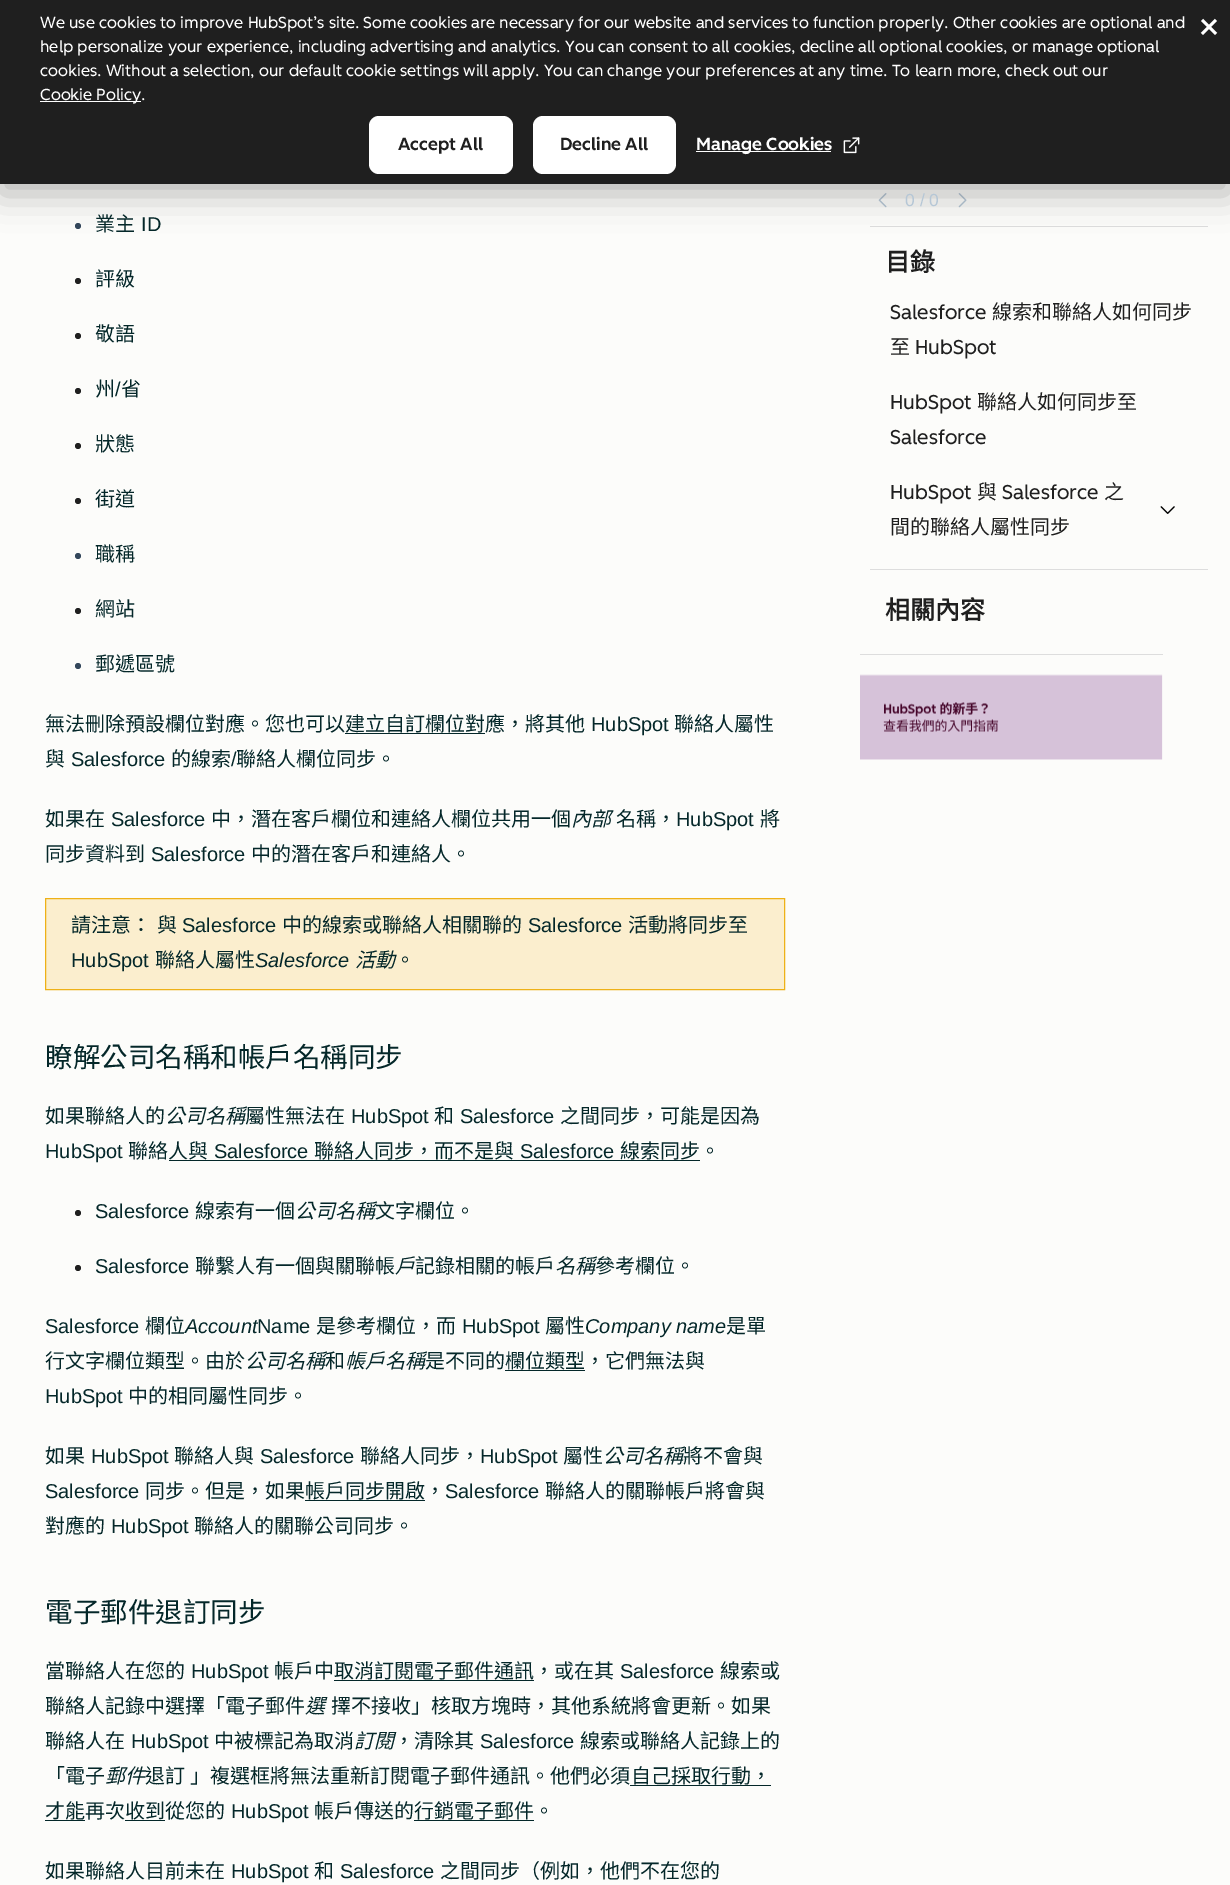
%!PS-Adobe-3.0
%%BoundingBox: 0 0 1230 1885
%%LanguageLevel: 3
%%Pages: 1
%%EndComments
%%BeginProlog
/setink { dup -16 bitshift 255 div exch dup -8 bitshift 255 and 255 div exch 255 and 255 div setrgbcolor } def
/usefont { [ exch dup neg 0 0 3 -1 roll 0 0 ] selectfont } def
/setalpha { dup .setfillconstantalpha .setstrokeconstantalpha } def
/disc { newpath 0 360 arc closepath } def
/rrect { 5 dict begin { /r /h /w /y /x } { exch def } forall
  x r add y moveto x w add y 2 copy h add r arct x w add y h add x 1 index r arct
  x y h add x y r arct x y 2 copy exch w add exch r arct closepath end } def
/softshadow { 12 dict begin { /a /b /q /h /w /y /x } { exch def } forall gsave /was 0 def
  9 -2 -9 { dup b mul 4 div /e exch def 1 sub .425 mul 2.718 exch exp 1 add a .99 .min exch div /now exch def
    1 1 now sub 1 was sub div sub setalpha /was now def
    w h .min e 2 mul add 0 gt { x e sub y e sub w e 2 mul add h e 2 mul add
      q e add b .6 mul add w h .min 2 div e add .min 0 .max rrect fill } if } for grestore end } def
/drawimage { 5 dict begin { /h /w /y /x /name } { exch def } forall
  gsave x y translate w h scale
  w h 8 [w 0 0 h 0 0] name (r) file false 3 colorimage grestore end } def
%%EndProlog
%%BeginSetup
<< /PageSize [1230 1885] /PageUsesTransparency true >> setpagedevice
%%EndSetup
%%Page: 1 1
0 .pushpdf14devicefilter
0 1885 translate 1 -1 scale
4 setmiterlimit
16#FCFCFA setink
0 0 1230 1885 rectfill
16#33475B setink
78 226 3 disc fill
(img2.raw) 878 193 9 15 drawimage
(img3.raw) 958 193 9 15 drawimage
16#DDDDDD setink
870 226 338 1 rectfill
16#000000 setink
0 10 1230 184 0 17.5 0.28 softshadow
16#1F1F1F setink
0 0 1230 184 rectfill
/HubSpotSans-Regular 16 usefont
16#FFFFFF setink
[
    [(We use cookies to improve HubSpot’s site. Some cookies are necessary for our website and services to function properly. Other cookies are optional and) 40 28]
    [(help personalize your experience, including advertising and analytics. You can consent to all cookies, decline all optional cookies, or manage optional) 40 52]
    [(cookies. Without a selection, our default cookie settings will apply. You can change your preferences at any time. To learn more, check out our) 40 76]
] { aload pop moveto show } forall
40 101 101 1 rectfill
40 100 moveto (Cookie Policy.) show
369 116 144 58 10 rrect fill
/HubSpotSans-Medium 17.5 usefont
16#1F1F1F setink
398 150 moveto (Accept All) show
16#FFFFFF setink
533 116 143 58 10 rrect fill
16#1F1F1F setink
560 150 moveto (Decline All) show
16#FFFFFF setink
696 151 135 1 rectfill
696 150 moveto (Manage Cookies) show
(img1.raw) 843 137 17 17 drawimage
/HubSpotSans-Regular 40 usefont
1197 39 moveto (×) show
/NotoSansCJKTC-Regular 20 usefont
16#042729 setink
95 231 moveto (業主) show
/LiberationSans-Regular 20 usefont
141 231 moveto (ID) show
16#1F1F1F setink
78 281 3 disc fill
/NotoSansCJKTC-Regular 20 usefont
16#042729 setink
95 286 moveto (評級) show
16#1F1F1F setink
78 336 3 disc fill
16#042729 setink
95 341 moveto (敬語) show
16#1F1F1F setink
78 391 3 disc fill
16#042729 setink
95 396 moveto (州) show
/LiberationSans-Regular 20 usefont
115 396 moveto (/) show
/NotoSansCJKTC-Regular 20 usefont
121 396 moveto (省) show
16#1F1F1F setink
78 446 3 disc fill
16#042729 setink
95 451 moveto (狀態) show
16#1F1F1F setink
78 501 3 disc fill
16#042729 setink
95 506 moveto (街道) show
16#33475B setink
78 556 3 disc fill
16#042729 setink
95 561 moveto (職稱) show
16#1F1F1F setink
78 611 3 disc fill
16#042729 setink
95 616 moveto (網站) show
16#33475B setink
78 666 3 disc fill
16#042729 setink
95 671 moveto (郵遞區號) show
45 731 moveto (無法刪除預設欄位對應。您也可以建立自訂欄位對應，將其他) show
345 733 140 1 rectfill
/LiberationSans-Regular 20 usefont
591 731 moveto (HubSpot) show
/NotoSansCJKTC-Regular 20 usefont
674 731 moveto (聯絡人屬性) show
45 766 moveto (與) show
/LiberationSans-Regular 20 usefont
71 766 moveto (Salesforce) show
/NotoSansCJKTC-Regular 20 usefont
171 766 moveto (的線索) show
/LiberationSans-Regular 20 usefont
231 766 moveto (/) show
/NotoSansCJKTC-Regular 20 usefont
236 766 moveto (聯絡人欄位同步。) show
45 826 moveto (如果在) show
/LiberationSans-Regular 20 usefont
111 826 moveto (Salesforce) show
/NotoSansCJKTC-Regular 20 usefont
211 826 moveto (中，潛在客戶欄位和連絡人欄位共用一個) show
/NotoSansCJKTC-Italic 20 usefont
571 826 moveto (內部) show
/NotoSansCJKTC-Regular 20 usefont
616 826 moveto (名稱，) show
/LiberationSans-Regular 20 usefont
676 826 moveto (HubSpot) show
/NotoSansCJKTC-Regular 20 usefont
760 826 moveto (將) show
45 861 moveto (同步資料到) show
/LiberationSans-Regular 20 usefont
151 861 moveto (Salesforce) show
/NotoSansCJKTC-Regular 20 usefont
251 861 moveto (中的潛在客戶和連絡人。) show
16#FBEECE setink
45.5 898.5 moveto 784.5 898.5 lineto 784.5 989.5 lineto 45.5 989.5 lineto closepath gsave fill grestore
16#EEB117 setink
stroke
16#042729 setink
71 932 moveto (請注意：) show
157 932 moveto (與) show
/LiberationSans-Regular 20 usefont
182 932 moveto (Salesforce) show
/NotoSansCJKTC-Regular 20 usefont
282 932 moveto (中的線索或聯絡人相關聯的) show
/LiberationSans-Regular 20 usefont
528 932 moveto (Salesforce) show
/NotoSansCJKTC-Regular 20 usefont
628 932 moveto (活動將同步至) show
/LiberationSans-Regular 20 usefont
71 967 moveto (HubSpot) show
/NotoSansCJKTC-Regular 20 usefont
155 967 moveto (聯絡人屬性) show
/LiberationSans-Italic 20 usefont
255 967 moveto (Salesforce) show
/NotoSansCJKTC-Italic 20 usefont
355 967 moveto (活動) show
/NotoSansCJKTC-Regular 20 usefont
395 967 moveto (。) show
/NotoSansCJKTC-Regular 27.5 usefont
45 1067 moveto (瞭解公司名稱和帳戶名稱同步) show
/NotoSansCJKTC-Regular 20 usefont
45 1123 moveto (如果聯絡人的) show
/NotoSansCJKTC-Italic 20 usefont
165 1123 moveto (公司名稱) show
/NotoSansCJKTC-Regular 20 usefont
245 1123 moveto (屬性無法在) show
/LiberationSans-Regular 20 usefont
351 1123 moveto (HubSpot) show
/NotoSansCJKTC-Regular 20 usefont
434 1123 moveto (和) show
/LiberationSans-Regular 20 usefont
460 1123 moveto (Salesforce) show
/NotoSansCJKTC-Regular 20 usefont
560 1123 moveto (之間同步，可能是因為) show
/LiberationSans-Regular 20 usefont
45 1158 moveto (HubSpot) show
/NotoSansCJKTC-Regular 20 usefont
128 1158 moveto (聯絡人與) show
/LiberationSans-Regular 20 usefont
214 1158 moveto (Salesforce) show
169 1160 531 1 rectfill
/NotoSansCJKTC-Regular 20 usefont
314 1158 moveto (聯絡人同步，而不是與) show
/LiberationSans-Regular 20 usefont
520 1158 moveto (Salesforce) show
/NotoSansCJKTC-Regular 20 usefont
620 1158 moveto (線索同步。) show
16#1F1F1F setink
78 1213 3 disc fill
/LiberationSans-Regular 20 usefont
16#042729 setink
95 1218 moveto (Salesforce) show
/NotoSansCJKTC-Regular 20 usefont
195 1218 moveto (線索有一個) show
/NotoSansCJKTC-Italic 20 usefont
295 1218 moveto (公司名稱) show
/NotoSansCJKTC-Regular 20 usefont
375 1218 moveto (文字欄位。) show
16#1F1F1F setink
78 1268 3 disc fill
/LiberationSans-Regular 20 usefont
16#042729 setink
95 1273 moveto (Salesforce) show
/NotoSansCJKTC-Regular 20 usefont
195 1273 moveto (聯繫人有一個與關聯帳) show
/NotoSansCJKTC-Italic 20 usefont
395 1273 moveto (戶) show
/NotoSansCJKTC-Regular 20 usefont
415 1273 moveto (記錄相關的帳戶) show
/NotoSansCJKTC-Italic 20 usefont
555 1273 moveto (名稱) show
/NotoSansCJKTC-Regular 20 usefont
595 1273 moveto (參考欄位。) show
/LiberationSans-Regular 20 usefont
45 1333 moveto (Salesforce) show
/NotoSansCJKTC-Regular 20 usefont
145 1333 moveto (欄位) show
/LiberationSans-Italic 20 usefont
185 1333 moveto (Account) show
/LiberationSans-Regular 20 usefont
257 1333 moveto (Name) show
/NotoSansCJKTC-Regular 20 usefont
316 1333 moveto (是參考欄位，而) show
/LiberationSans-Regular 20 usefont
462 1333 moveto (HubSpot) show
/NotoSansCJKTC-Regular 20 usefont
545 1333 moveto (屬性) show
/LiberationSans-Italic 20 usefont
585 1333 moveto (Company name) show
/NotoSansCJKTC-Regular 20 usefont
726 1333 moveto (是單) show
45 1368 moveto (行文字欄位類型。由於) show
/NotoSansCJKTC-Italic 20 usefont
245 1368 moveto (公司名稱) show
/NotoSansCJKTC-Regular 20 usefont
325 1368 moveto (和) show
/NotoSansCJKTC-Italic 20 usefont
345 1368 moveto (帳戶名稱) show
/NotoSansCJKTC-Regular 20 usefont
425 1368 moveto (是不同的欄位類型，它們無法與) show
505 1370 80 1 rectfill
/LiberationSans-Regular 20 usefont
45 1403 moveto (HubSpot) show
/NotoSansCJKTC-Regular 20 usefont
128 1403 moveto (中的相同屬性同步。) show
45 1463 moveto (如果) show
/LiberationSans-Regular 20 usefont
91 1463 moveto (HubSpot) show
/NotoSansCJKTC-Regular 20 usefont
174 1463 moveto (聯絡人與) show
/LiberationSans-Regular 20 usefont
260 1463 moveto (Salesforce) show
/NotoSansCJKTC-Regular 20 usefont
360 1463 moveto (聯絡人同步，) show
/LiberationSans-Regular 20 usefont
480 1463 moveto (HubSpot) show
/NotoSansCJKTC-Regular 20 usefont
563 1463 moveto (屬性) show
/NotoSansCJKTC-Italic 20 usefont
603 1463 moveto (公司名稱) show
/NotoSansCJKTC-Regular 20 usefont
683 1463 moveto (將不會與) show
/LiberationSans-Regular 20 usefont
45 1498 moveto (Salesforce) show
/NotoSansCJKTC-Regular 20 usefont
145 1498 moveto (同步。但是，如果帳戶同步開啟，) show
305 1500 120 1 rectfill
/LiberationSans-Regular 20 usefont
445 1498 moveto (Salesforce) show
/NotoSansCJKTC-Regular 20 usefont
545 1498 moveto (聯絡人的關聯帳戶將會與) show
45 1533 moveto (對應的) show
/LiberationSans-Regular 20 usefont
111 1533 moveto (HubSpot) show
/NotoSansCJKTC-Regular 20 usefont
194 1533 moveto (聯絡人的關聯公司同步。) show
/NotoSansCJKTC-Regular 27.5 usefont
45 1622 moveto (電子郵件退訂同步) show
/NotoSansCJKTC-Regular 20 usefont
45 1678 moveto (當聯絡人在您的) show
/LiberationSans-Regular 20 usefont
191 1678 moveto (HubSpot) show
/NotoSansCJKTC-Regular 20 usefont
274 1678 moveto (帳戶中取消訂閱電子郵件通訊，或在其) show
334 1680 200 1 rectfill
/LiberationSans-Regular 20 usefont
620 1678 moveto (Salesforce) show
/NotoSansCJKTC-Regular 20 usefont
720 1678 moveto (線索或) show
45 1713 moveto (聯絡人記錄中選擇「電子郵件) show
/NotoSansCJKTC-Italic 20 usefont
305 1713 moveto (選) show
/NotoSansCJKTC-Regular 20 usefont
331 1713 moveto (擇不接收」核取方塊時，其他系統將會更新。如果) show
45 1748 moveto (聯絡人在) show
/LiberationSans-Regular 20 usefont
131 1748 moveto (HubSpot) show
/NotoSansCJKTC-Regular 20 usefont
214 1748 moveto (中被標記為取消) show
/NotoSansCJKTC-Italic 20 usefont
354 1748 moveto (訂閱) show
/NotoSansCJKTC-Regular 20 usefont
394 1748 moveto (，清除其) show
/LiberationSans-Regular 20 usefont
480 1748 moveto (Salesforce) show
/NotoSansCJKTC-Regular 20 usefont
580 1748 moveto (線索或聯絡人記錄上的) show
45 1783 moveto (「電子) show
/NotoSansCJKTC-Italic 20 usefont
105 1783 moveto (郵件) show
/NotoSansCJKTC-Regular 20 usefont
145 1783 moveto 1 0 32 (退訂 」複選框將無法重新訂閱電子郵件通訊。他們必須) widthshow
630 1785 141 1 rectfill
631 1783 moveto (自己採取行動，) show
45 1818 moveto (才能再次收到從您的) show
45 1820 40 1 rectfill
125 1820 40 1 rectfill
/LiberationSans-Regular 20 usefont
231 1818 moveto (HubSpot) show
/NotoSansCJKTC-Regular 20 usefont
314 1818 moveto (帳戶傳送的行銷電子郵件。) show
414 1820 120 1 rectfill
45 1878 moveto (如果聯絡人目前未在) show
/LiberationSans-Regular 20 usefont
231 1878 moveto (HubSpot) show
/NotoSansCJKTC-Regular 20 usefont
314 1878 moveto (和) show
/LiberationSans-Regular 20 usefont
340 1878 moveto (Salesforce) show
/NotoSansCJKTC-Regular 20 usefont
440 1878 moveto (之間同步（例如，他們不在您的) show
/LiberationSans-Regular 17.5 usefont
16#B6C7D6 setink
905 206 moveto (0 / 0) show
/NotoSansCJKTC-Bold 25 usefont
16#1F1F1F setink
885 271 moveto (目錄) show
/HubSpotSans-Regular 20 usefont
890 319 moveto (Salesforce) show
/NotoSansCJKTC-Regular 20 usefont
992 319 moveto (線索和聯絡人如何同步) show
890 354 moveto (至) show
/HubSpotSans-Regular 20 usefont
915 354 moveto (HubSpot) show
890 409 moveto (HubSpot) show
/NotoSansCJKTC-Regular 20 usefont
977 409 moveto (聯絡人如何同步至) show
/HubSpotSans-Regular 20 usefont
890 444 moveto (Salesforce) show
890 499 moveto (HubSpot) show
/NotoSansCJKTC-Regular 20 usefont
977 499 moveto (與) show
/HubSpotSans-Regular 20 usefont
1002 499 moveto (Salesforce) show
/NotoSansCJKTC-Regular 20 usefont
1104 499 moveto (之) show
890 534 moveto (間的聯絡人屬性同步) show
(img4.raw) 1160 506 15 8 drawimage
16#DDDDDD setink
870 569 338 1 rectfill
/NotoSansCJKTC-Bold 25 usefont
16#1F1F1F setink
885 619 moveto (相關內容) show
16#DDDDDD setink
860 654 303 1 rectfill
(img5.raw) 860 674 303 86 drawimage
.poppdf14devicefilter showpage
%%EOF
